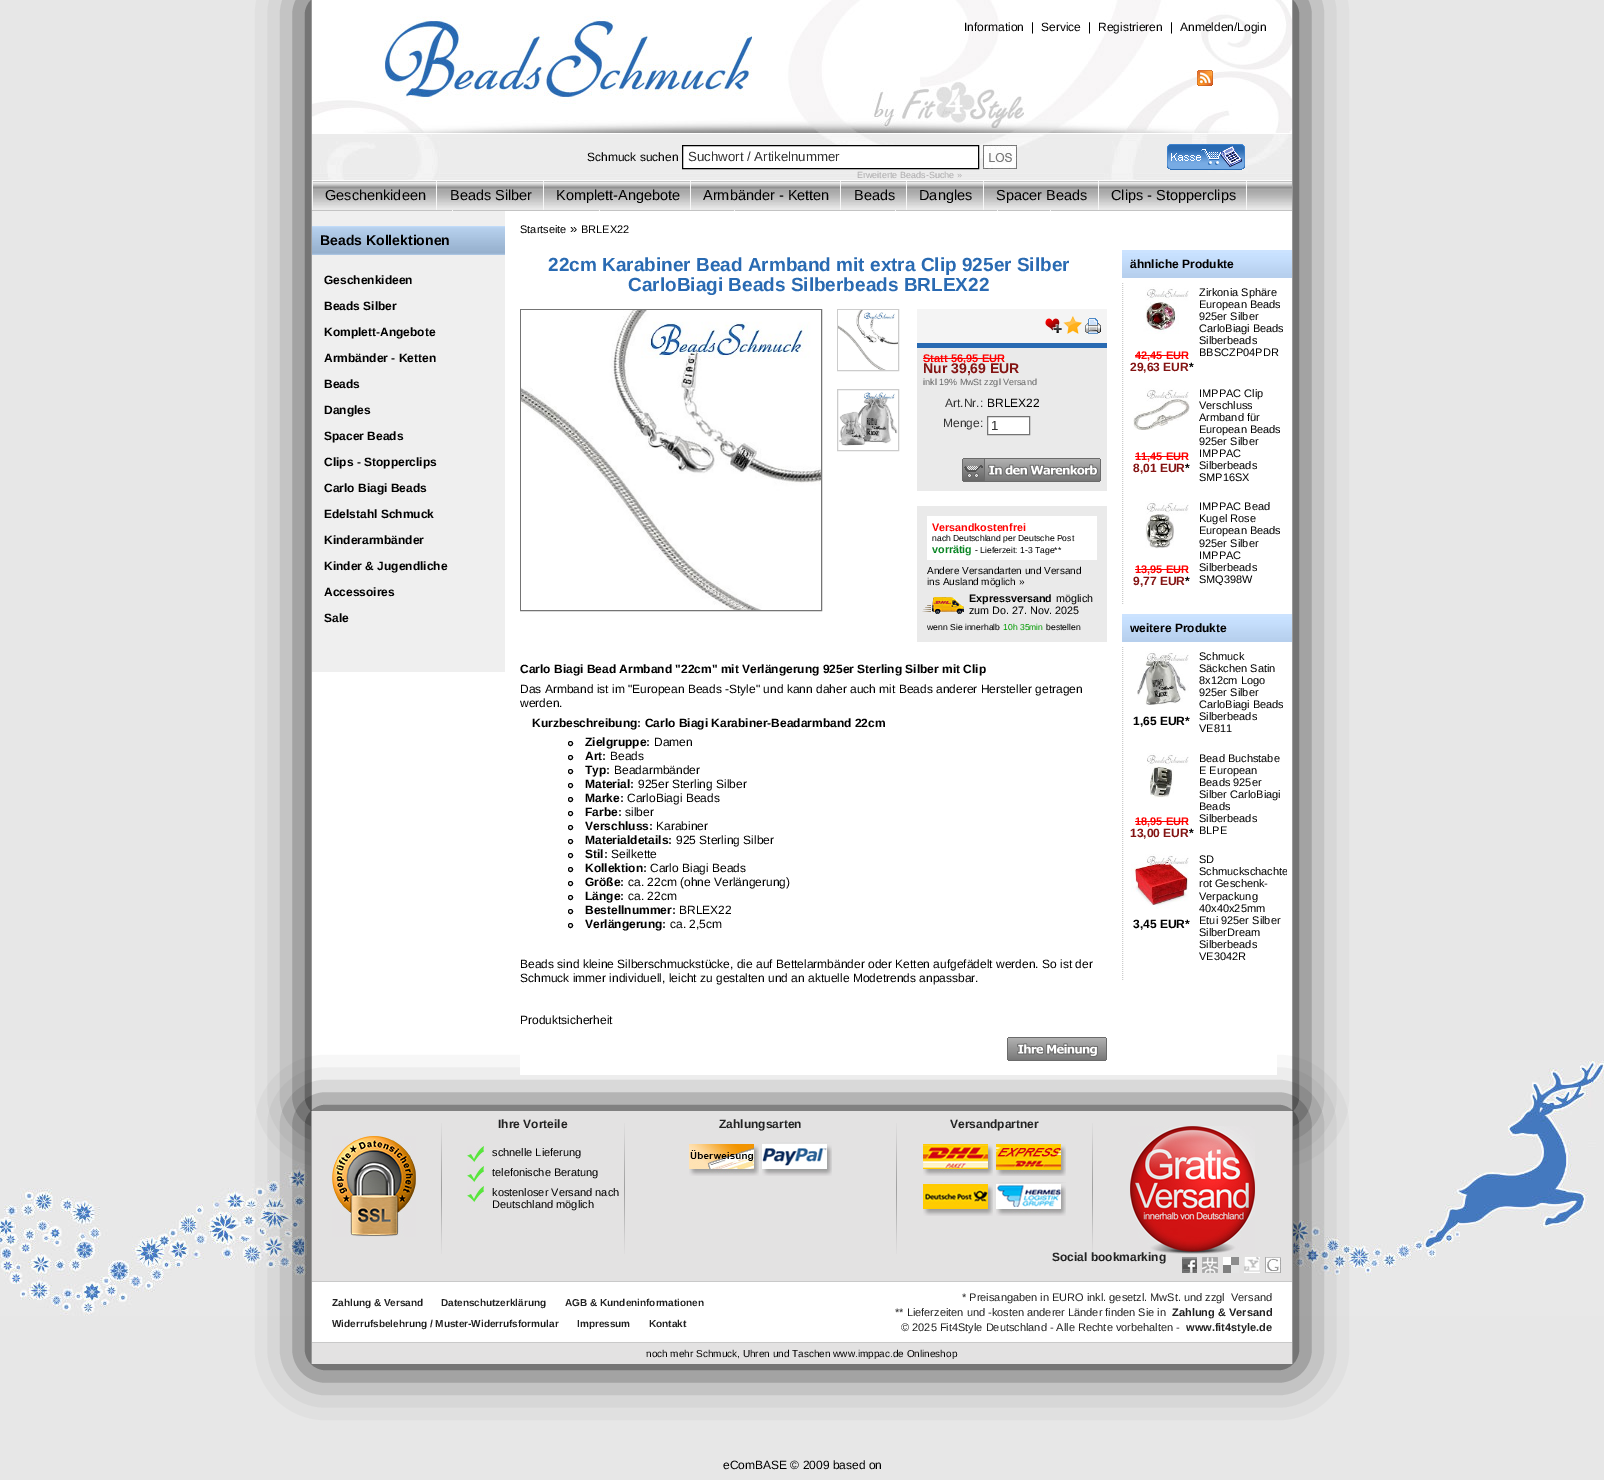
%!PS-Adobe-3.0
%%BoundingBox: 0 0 1604 1480
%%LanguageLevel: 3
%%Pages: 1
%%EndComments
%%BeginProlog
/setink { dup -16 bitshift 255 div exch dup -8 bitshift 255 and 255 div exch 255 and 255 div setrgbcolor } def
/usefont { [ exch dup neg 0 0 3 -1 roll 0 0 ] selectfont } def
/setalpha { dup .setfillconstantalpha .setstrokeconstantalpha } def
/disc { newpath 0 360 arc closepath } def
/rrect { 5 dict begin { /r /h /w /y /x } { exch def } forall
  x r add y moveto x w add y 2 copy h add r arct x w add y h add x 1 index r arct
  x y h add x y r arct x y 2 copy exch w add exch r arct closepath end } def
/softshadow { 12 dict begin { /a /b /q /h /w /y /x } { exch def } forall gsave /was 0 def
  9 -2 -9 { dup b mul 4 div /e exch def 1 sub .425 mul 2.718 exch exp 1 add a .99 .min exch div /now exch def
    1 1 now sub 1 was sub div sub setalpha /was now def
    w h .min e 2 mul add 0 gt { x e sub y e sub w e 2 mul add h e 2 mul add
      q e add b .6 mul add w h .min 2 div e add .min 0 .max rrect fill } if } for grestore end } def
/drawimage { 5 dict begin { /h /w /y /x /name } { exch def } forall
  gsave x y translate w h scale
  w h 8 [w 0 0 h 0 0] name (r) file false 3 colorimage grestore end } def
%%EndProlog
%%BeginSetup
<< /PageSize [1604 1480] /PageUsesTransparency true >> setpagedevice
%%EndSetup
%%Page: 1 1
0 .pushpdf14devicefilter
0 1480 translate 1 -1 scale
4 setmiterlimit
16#E7E7E7 setink
0 0 1604 1480 rectfill
(img1.raw) 0 1060 1604 256 drawimage
16#000000 setink
311 0 982 1111 0 25 1 softshadow
[
    [312 211 980 900 16#FFFFFF]
    [1292 0 1 1111 16#999999]
    [311 0 1 1111 16#999999]
] { aload pop setink rectfill } forall
(img2.raw) 312 0 980 133 drawimage
/LiberationSans-Regular 12 usefont
16#000000 setink
[
    [(Information) 964 31]
    [(|) 1031 31]
    [(Service) 1041 31]
    [(|) 1088 31]
    [(Registrieren) 1098 31]
    [(|) 1170 31]
    [(Anmelden/Login) 1180 31]
] { aload pop moveto show } forall
(img3.raw) 1197 70 16 16 drawimage
(img4.raw) 312 133 980 48 drawimage
587 161 moveto (Schmuck suchen) show
16#FFFFFF setink
682.5 145.5 moveto 978.5 145.5 lineto 978.5 168.5 lineto 682.5 168.5 lineto closepath gsave fill grestore
16#000000 setink
stroke
/LiberationSans-Regular 13.25 usefont
16#333333 setink
688 161 moveto (Suchwort / Artikelnummer) show
(img5.raw) 983 145 34 24 drawimage
(img6.raw) 1167 144 78 26 drawimage
/LiberationSans-Regular 9 usefont
16#AAA9AA setink
857 178 moveto (Erweiterte Beads-Suche ») show
(img7.raw) 312 181 980 30 drawimage
16#F7F7F7 setink
312 181 1 29 rectfill
436 181 1 29 rectfill
/LiberationSans-Regular 14.5 usefont
16#000000 setink
325 200 moveto (Geschenkideen) show
16#F7F7F7 setink
543 181 1 29 rectfill
16#000000 setink
450 200 moveto (Beads Silber) show
16#F7F7F7 setink
690 181 1 29 rectfill
16#000000 setink
556 200 moveto (Komplett-Angebote) show
16#F7F7F7 setink
840 181 1 29 rectfill
16#000000 setink
703 200 moveto (Armbänder - Ketten) show
16#F7F7F7 setink
906 181 1 29 rectfill
16#000000 setink
854 200 moveto (Beads) show
16#F7F7F7 setink
983 181 1 29 rectfill
16#000000 setink
919 200 moveto (Dangles) show
16#F7F7F7 setink
1098 181 1 29 rectfill
16#000000 setink
996 200 moveto (Spacer Beads) show
16#F7F7F7 setink
1246 181 1 29 rectfill
16#000000 setink
1111 200 moveto (Clips - Stopperclips) show
[
    [452 210 1 1 16#F7F7F7]
    [599 210 1 1 16#F7F7F7]
    [734 210 1 1 16#F7F7F7]
    [895 210 1 1 16#F7F7F7]
    [997 210 1 1 16#F7F7F7]
    [1050 210 1 1 16#F7F7F7]
    [312 211 193 461 16#EFEFEF]
] { aload pop setink rectfill } forall
(img8.raw) 312 226 193 29 drawimage
/LiberationSans-Bold 14 usefont
16#000000 setink
320 245 moveto (Beads Kollektionen) show
/LiberationSans-Bold 12 usefont
[
    [(Geschenkideen) 324 284]
    [(Beads Silber) 324 310]
    [(Komplett-Angebote) 324 336]
    [(Armbänder - Ketten) 324 362]
    [(Beads) 324 388]
    [(Dangles) 324 414]
    [(Spacer Beads) 324 440]
    [(Clips - Stopperclips) 324 466]
    [(Carlo Biagi Beads) 324 492]
    [(Edelstahl Schmuck) 324 518]
    [(Kinderarmbänder) 324 544]
    [(Kinder & Jugendliche) 324 570]
    [(Accessoires) 324 596]
    [(Sale) 324 622]
] { aload pop moveto show } forall
/LiberationSans-Regular 11 usefont
520 233 moveto (Startseite) show
/LiberationSans-Regular 13 usefont
570 233 moveto (») show
/LiberationSans-Regular 11 usefont
581 233 moveto (BRLEX22) show
311 1111 982 253 0 25 1 softshadow
16#FFFFFF setink
520 1053 757 22 rectfill
/LiberationSans-Bold 19 usefont
16#296AB2 setink
548 271 moveto (22cm Karabiner Bead Armband mit extra Clip 925er Silber) show
628 291 moveto (CarloBiagi Beads Silberbeads BRLEX22) show
16#747474 setink
520.5 309.5 301 301 rectstroke
(img9.raw) 521 310 300 300 drawimage
16#CCCCCC setink
837.5 309.5 61 61 rectstroke
(img10.raw) 838 310 60 60 drawimage
837.5 389.5 61 61 rectstroke
(img11.raw) 839 392 59 54 drawimage
[
    [917 348 190 294 16#EAEAEA]
    [917 309 190 34 16#F4F4F4]
    [917 343 190 5 16#296AB2]
] { aload pop setink rectfill } forall
(img12.raw) 1045 318 17 15 drawimage
(img13.raw) 1063 316 19 18 drawimage
(img14.raw) 1085 318 16 16 drawimage
/LiberationSans-Bold 11 usefont
16#FF0000 setink
923 362 moveto (Statt) show
923 358 28 1 rectfill
951 362 moveto (56,95 EUR) show
951 358 53 1 rectfill
/LiberationSans-Bold 14 usefont
16#831312 setink
923 373 moveto (Nur 39,69 EUR) show
/LiberationSans-Regular 9 usefont
16#666666 setink
923 385 moveto (inkl 19% MwSt zzgl Versand) show
/LiberationSans-Regular 12 usefont
16#333333 setink
945 407 moveto (Art.Nr.:) show
16#000000 setink
987 407 moveto (BRLEX22) show
16#333333 setink
943 427 moveto (Menge:) show
16#FFFFFF setink
987.5 416.5 moveto 1029.5 416.5 lineto 1029.5 434.5 lineto 987.5 434.5 lineto closepath gsave fill grestore
16#747474 setink
stroke
/LiberationSans-Regular 13.25 usefont
16#333333 setink
991 430 moveto (1) show
(img15.raw) 962 458 139 24 drawimage
16#FFFFFF setink
917 491 190 15 rectfill
927 516 170 44 rectfill
/LiberationSans-Bold 10.75 usefont
16#FF0000 setink
932 531 moveto (Versandkostenfrei) show
/LiberationSans-Regular 8.6 usefont
16#000000 setink
932 541 moveto (nach Deutschland per Deutsche Post) show
/LiberationSans-Bold 10.75 usefont
16#0A8624 setink
932 553 moveto (vorrätig) show
/LiberationSans-Regular 8.6 usefont
16#000000 setink
975 553 moveto (- Lieferzeit: 1-3 Tage**) show
/LiberationSans-Regular 10 usefont
927 574 moveto (Andere Versandarten und Versand) show
927 585 moveto (ins Ausland möglich ») show
(img16.raw) 922 597 42 17 drawimage
/LiberationSans-Bold 10.75 usefont
969 602 moveto (Expressversand) show
/LiberationSans-Regular 10.75 usefont
1056 602 moveto (möglich) show
969 614 moveto (zum Do. 27. Nov. 2025) show
/LiberationSans-Regular 8.6 usefont
927 630 moveto (wenn Sie innerhalb) show
16#009900 setink
1003 630 moveto (10h 35min) show
16#000000 setink
1046 630 moveto (bestellen) show
/LiberationSans-Bold 12 usefont
520 673 moveto (Carlo Biagi Bead Armband "22cm" mit Verlängerung 925er Sterling Silber mit Clip) show
/LiberationSans-Regular 12 usefont
520 693 moveto (Das Armband ist im "European Beads -Style" und kann daher auch mit Beads anderer Hersteller getragen) show
520 707 moveto (werden.) show
/LiberationSans-Bold 12 usefont
532 727 moveto (Kurzbeschreibung: Carlo Biagi Karabiner-Beadarmband 22cm) show
570.5 743.5 2 disc stroke
585 746 moveto (Zielgruppe:) show
/LiberationSans-Regular 12 usefont
654 746 moveto (Damen) show
570.5 757.5 2 disc stroke
/LiberationSans-Bold 12 usefont
585 760 moveto (Art:) show
/LiberationSans-Regular 12 usefont
610 760 moveto (Beads) show
570.5 771.5 2 disc stroke
/LiberationSans-Bold 12 usefont
585 774 moveto (Typ:) show
/LiberationSans-Regular 12 usefont
614 774 moveto (Beadarmbänder) show
570.5 785.5 2 disc stroke
/LiberationSans-Bold 12 usefont
585 788 moveto (Material:) show
/LiberationSans-Regular 12 usefont
638 788 moveto (925er Sterling Silber) show
570.5 799.5 2 disc stroke
/LiberationSans-Bold 12 usefont
585 802 moveto (Marke:) show
/LiberationSans-Regular 12 usefont
627 802 moveto (CarloBiagi Beads) show
570.5 813.5 2 disc stroke
/LiberationSans-Bold 12 usefont
585 816 moveto (Farbe:) show
/LiberationSans-Regular 12 usefont
625 816 moveto (silber) show
570.5 827.5 2 disc stroke
/LiberationSans-Bold 12 usefont
585 830 moveto (Verschluss:) show
/LiberationSans-Regular 12 usefont
656 830 moveto (Karabiner) show
570.5 841.5 2 disc stroke
/LiberationSans-Bold 12 usefont
585 844 moveto (Materialdetails:) show
/LiberationSans-Regular 12 usefont
676 844 moveto (925 Sterling Silber) show
570.5 855.5 2 disc stroke
/LiberationSans-Bold 12 usefont
585 858 moveto (Stil:) show
/LiberationSans-Regular 12 usefont
611 858 moveto (Seilkette) show
570.5 869.5 2 disc stroke
/LiberationSans-Bold 12 usefont
585 872 moveto (Kollektion:) show
/LiberationSans-Regular 12 usefont
650 872 moveto (Carlo Biagi Beads) show
570.5 883.5 2 disc stroke
/LiberationSans-Bold 12 usefont
585 886 moveto (Größe:) show
/LiberationSans-Regular 12 usefont
628 886 moveto (ca. 22cm \(ohne Verlängerung\)) show
570.5 897.5 2 disc stroke
/LiberationSans-Bold 12 usefont
585 900 moveto (Länge:) show
/LiberationSans-Regular 12 usefont
628 900 moveto (ca. 22cm) show
570.5 911.5 2 disc stroke
/LiberationSans-Bold 12 usefont
585 914 moveto (Bestellnummer:) show
/LiberationSans-Regular 12 usefont
679 914 moveto (BRLEX22) show
570.5 925.5 2 disc stroke
/LiberationSans-Bold 12 usefont
585 928 moveto (Verlängerung:) show
/LiberationSans-Regular 12 usefont
[
    [(ca. 2,5cm) 670 928]
    [(Beads sind kleine Silberschmuckstücke, die auf Bettelarmbänder oder Ketten aufgefädelt werden. So ist der) 520 968]
    [(Schmuck immer individuell, leicht zu gestalten und an aktuelle Modetrends anpassbar.) 520 982]
    [(Produktsicherheit) 520 1024]
] { aload pop moveto show } forall
(img17.raw) 1007 1037 100 24 drawimage
(img18.raw) 1122 250 170 28 drawimage
/LiberationSans-Bold 12 usefont
1130 268 moveto (ähnliche Produkte) show
16#CCCCCC setink
[1 1] 0 setdash
1122.5 283 moveto 1122.5 604 lineto stroke
/LiberationSans-Regular 11 usefont
16#000000 setink
[
    [(Zirkonia Sphäre) 1199 296]
    [(European Beads) 1199 308]
    [(925er Silber) 1199 320]
    [(CarloBiagi Beads) 1199 332]
    [(Silberbeads) 1199 344]
    [(BBSCZP04PDR) 1199 356]
] { aload pop moveto show } forall
(img19.raw) 1143 287 46 47 drawimage
/LiberationSans-Bold 11 usefont
16#FF0000 setink
1135 359 moveto (42,45 EUR) show
1135 355 53 1 rectfill
/LiberationSans-Bold 12 usefont
16#831312 setink
1130 371 moveto (29,63 EUR) show
16#000000 setink
1189 371 moveto (*) show
(img20.raw) 1133 388 57 42 drawimage
/LiberationSans-Bold 11 usefont
16#FF0000 setink
1135 460 moveto (11,45 EUR) show
1135 456 53 1 rectfill
/LiberationSans-Bold 12 usefont
16#831312 setink
1133 472 moveto (8,01 EUR) show
16#000000 setink
1185 472 moveto (*) show
/LiberationSans-Regular 11 usefont
[
    [(IMPPAC Clip) 1199 397]
    [(Verschluss) 1199 409]
    [(Armband für) 1199 421]
    [(European Beads) 1199 433]
    [(925er Silber) 1199 445]
    [(IMPPAC) 1199 457]
    [(Silberbeads) 1199 469]
    [(SMP16SX) 1199 481]
] { aload pop moveto show } forall
(img21.raw) 1145 501 44 48 drawimage
/LiberationSans-Bold 11 usefont
16#FF0000 setink
1135 573 moveto (13,95 EUR) show
1135 569 53 1 rectfill
/LiberationSans-Bold 12 usefont
16#831312 setink
1133 585 moveto (9,77 EUR) show
16#000000 setink
1185 585 moveto (*) show
/LiberationSans-Regular 11 usefont
[
    [(IMPPAC Bead) 1199 510]
    [(Kugel Rose) 1199 522]
    [(European Beads) 1199 534]
    [(925er Silber) 1199 547]
    [(IMPPAC) 1199 559]
    [(Silberbeads) 1199 571]
    [(SMQ398W) 1199 583]
] { aload pop moveto show } forall
(img18.raw) 1122 614 170 28 drawimage
/LiberationSans-Bold 12 usefont
1130 632 moveto (weitere Produkte) show
16#CCCCCC setink
1122.5 647 moveto 1122.5 981 lineto stroke
(img22.raw) 1137 651 52 54 drawimage
16#000000 setink
1133 725 moveto (1,65 EUR*) show
/LiberationSans-Regular 11 usefont
[
    [(Schmuck) 1199 660]
    [(Säckchen Satin) 1199 672]
    [(8x12cm Logo) 1199 684]
    [(925er Silber) 1199 696]
    [(CarloBiagi Beads) 1199 708]
    [(Silberbeads) 1199 720]
    [(VE811) 1199 732]
] { aload pop moveto show } forall
(img23.raw) 1147 753 42 45 drawimage
/LiberationSans-Bold 11 usefont
16#FF0000 setink
1135 825 moveto (18,95 EUR) show
1135 821 53 1 rectfill
/LiberationSans-Bold 12 usefont
16#831312 setink
1130 837 moveto (13,00 EUR) show
16#000000 setink
1189 837 moveto (*) show
/LiberationSans-Regular 11 usefont
[
    [(Bead Buchstabe) 1199 762]
    [(E European) 1199 774]
    [(Beads 925er) 1199 786]
    [(Silber CarloBiagi) 1199 798]
    [(Beads) 1199 810]
    [(Silberbeads) 1199 822]
    [(BLPE) 1199 834]
] { aload pop moveto show } forall
(img24.raw) 1131 854 58 55 drawimage
/LiberationSans-Bold 12 usefont
1133 928 moveto (3,45 EUR*) show
/LiberationSans-Regular 11 usefont
1199 863 moveto (SD) show
gsave
1196 850 91 116 rectclip
1199 875 moveto (Schmuckschachte) show
grestore
[
    [(rot Geschenk-) 1199 887]
    [(Verpackung) 1199 900]
    [(40x40x25mm) 1199 912]
    [(Etui 925er Silber) 1199 924]
    [(SilberDream) 1199 936]
    [(Silberbeads) 1199 948]
    [(VE3042R) 1199 960]
] { aload pop moveto show } forall
[
    [312 1282 980 60 16#FFFFFF]
    [1292 1111 1 253 16#999999]
    [311 1111 1 253 16#999999]
    [312 1111 980 170 16#E3E2E2]
] { aload pop setink rectfill } forall
(img25.raw) 332 1136 84 101 drawimage
(img26.raw) 441 1123 1 131 drawimage
/LiberationSans-Bold 12 usefont
16#222222 setink
498 1128 moveto (Ihre Vorteile) show
(img27.raw) 467 1146 17 16 drawimage
/LiberationSans-Regular 11 usefont
16#000000 setink
492 1156 moveto (schnelle Lieferung) show
(img27.raw) 467 1166 17 16 drawimage
492 1176 moveto (telefonische Beratung) show
(img27.raw) 467 1186 17 16 drawimage
492 1196 moveto (kostenloser Versand nach) show
492 1208 moveto (Deutschland möglich) show
(img26.raw) 624 1123 1 131 drawimage
/LiberationSans-Bold 12 usefont
16#222222 setink
719 1128 moveto (Zahlungsarten) show
(img28.raw) 689 1144 70 32 drawimage
(img29.raw) 762 1142 70 34 drawimage
(img26.raw) 896 1123 1 131 drawimage
950 1128 moveto (Versandpartner) show
(img30.raw) 923 1143 70 33 drawimage
(img31.raw) 996 1143 70 33 drawimage
(img32.raw) 923 1182 70 34 drawimage
(img33.raw) 996 1182 70 34 drawimage
(img26.raw) 1092 1123 1 131 drawimage
(img34.raw) 1130 1126 125 128 drawimage
1052 1261 moveto (Social bookmarking) show
(img35.raw) 1182 1257 15 16 drawimage
(img36.raw) 1202 1257 16 16 drawimage
(img37.raw) 1223 1257 16 16 drawimage
(img38.raw) 1244 1257 16 16 drawimage
(img39.raw) 1265 1257 16 16 drawimage
16#C9C9C9 setink
312 1281 980 1 rectfill
/LiberationSans-Bold 10 usefont
16#222222 setink
[
    [(Zahlung & Versand) 332 1306]
    [(Datenschutzerklärung) 441 1306]
    [(AGB & Kundeninformationen) 565 1306]
    [(Widerrufsbelehrung / Muster-Widerrufsformular) 332 1327]
    [(Impressum) 577 1327]
    [(Kontakt) 649 1327]
] { aload pop moveto show } forall
/LiberationSans-Regular 11 usefont
[
    [(* Preisangaben in EURO inkl. gesetzl. MwSt. und zzgl) 962 1301]
    [(Versand) 1231 1301]
    [(** Lieferzeiten und -kosten anderer Länder finden Sie in) 895 1316]
] { aload pop moveto show } forall
/LiberationSans-Bold 11 usefont
1172 1316 moveto (Zahlung & Versand) show
/LiberationSans-Regular 11 usefont
901 1331 moveto (© 2025 Fit4Style Deutschland - Alle Rechte vorbehalten -) show
/LiberationSans-Bold 11 usefont
1186 1331 moveto (www.fit4style.de) show
16#E3E2E2 setink
312 1343 980 21 rectfill
16#C9C9C9 setink
312 1342 980 1 rectfill
/LiberationSans-Regular 10 usefont
16#000000 setink
646 1357 moveto (noch mehr Schmuck, Uhren und Taschen www.imppac.de Onlineshop) show
/LiberationSans-Regular 12 usefont
723 1469 moveto (eComBASE © 2009 based on) show
.poppdf14devicefilter showpage
%%EOF
